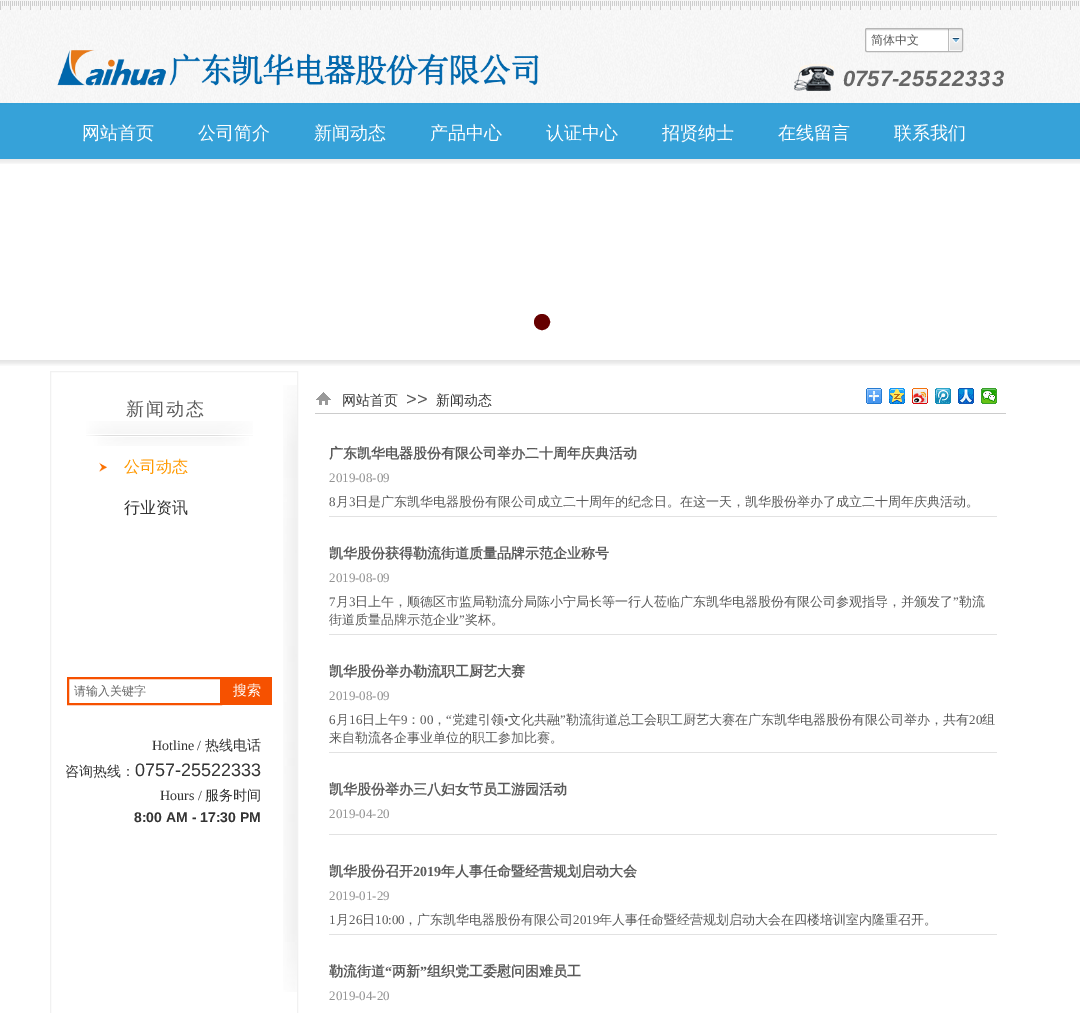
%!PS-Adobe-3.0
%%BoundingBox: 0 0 1080 1013
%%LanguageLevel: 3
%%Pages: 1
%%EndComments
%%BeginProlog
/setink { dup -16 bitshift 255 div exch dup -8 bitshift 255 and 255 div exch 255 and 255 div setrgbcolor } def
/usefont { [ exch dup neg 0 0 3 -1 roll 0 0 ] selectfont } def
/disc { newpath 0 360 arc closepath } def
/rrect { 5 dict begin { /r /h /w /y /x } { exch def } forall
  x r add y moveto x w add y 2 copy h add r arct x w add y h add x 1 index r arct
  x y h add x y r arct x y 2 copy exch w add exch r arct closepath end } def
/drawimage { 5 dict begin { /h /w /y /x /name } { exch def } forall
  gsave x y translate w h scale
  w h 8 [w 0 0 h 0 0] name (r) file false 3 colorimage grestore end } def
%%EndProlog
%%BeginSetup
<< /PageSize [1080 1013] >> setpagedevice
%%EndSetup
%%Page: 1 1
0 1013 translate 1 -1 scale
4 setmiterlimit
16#FFFFFF setink
0 0 1080 1013 rectfill
(img1.raw) 0 0 1080 105 drawimage
(img2.raw) 0 1 1079 9 drawimage
865 28 98 24 2 rrect fill
(img3.raw) 865 29 98 2 drawimage
16#B5B5B5 setink
865.5 28.5 97 23 1.5 rrect stroke
/WenQuanYiZenHei-Medium 12 usefont
16#5A5A5A setink
871 44 moveto (简体中文) show
(img4.raw) 948 29 14 22 drawimage
(img5.raw) 57 50 482 36 drawimage
(img6.raw) 794 64 40 27 drawimage
/LiberationSans-BoldItalic 22 usefont
16#666666 setink
843 86 moveto (0757-) show
899 86 moveto 1 0 (25522333) ashow
16#660000 setink
542 322 7 disc gsave fill grestore
2 setlinewidth
stroke
(img7.raw) 0 360 1080 6 drawimage
(img8.raw) 0 103 1080 61 drawimage
/WenQuanYiZenHei-Medium 18 usefont
16#FFFFFF setink
[
    [(网站首页) 82 139]
    [(公司简介) 198 139]
    [(新闻动态) 314 139]
    [(产品中心) 430 139]
    [(认证中心) 546 139]
    [(招贤纳士) 662 139]
    [(在线留言) 778 139]
    [(联系我们) 894 139]
] { aload pop moveto show } forall
16#F1F1F1 setink
1 setlinewidth
50.5 371.5 247 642 rectstroke
16#5A5A5A setink
126 415 moveto 2 0 (新闻动态) ashow
(img9.raw) 283 385 14 607 drawimage
(img10.raw) 316 392 15 13 drawimage
/WenQuanYiZenHei-Medium 14 usefont
16#333333 setink
342 405 moveto (网站首页) show
/LiberationSans-Regular 18 usefont
16#5A5A5A setink
406 405 moveto (>>) show
/WenQuanYiZenHei-Medium 14 usefont
16#333333 setink
436 405 moveto (新闻动态) show
(img11.raw) 866 388 16 16 drawimage
(img12.raw) 889 388 16 16 drawimage
(img13.raw) 912 388 16 16 drawimage
(img14.raw) 935 388 16 16 drawimage
(img15.raw) 958 388 16 16 drawimage
(img16.raw) 981 388 16 16 drawimage
16#CCCCCC setink
315 413 691 1 rectfill
(img17.raw) 86 421 167 25 drawimage
(img18.raw) 99 462 8 10 drawimage
/WenQuanYiZenHei-Medium 16 usefont
16#FF9900 setink
124 472 moveto (公司动态) show
16#333333 setink
124 513 moveto (行业资讯) show
/WenQuanYiZenHei-Bold 14 usefont
16#5A5A5A setink
329 458 moveto (广东凯华电器股份有限公司举办二十周年庆典活动) show
/LiberationSerif-Regular 13 usefont
16#929292 setink
329 482 moveto (2019-08-09) show
16#5A5A5A setink
329 506 moveto (8) show
/WenQuanYiZenHei-Medium 13 usefont
336 506 moveto (月) show
/LiberationSerif-Regular 13 usefont
349 506 moveto (3) show
/WenQuanYiZenHei-Medium 13 usefont
355 506 moveto (日是广东凯华电器股份有限公司成立二十周年的纪念日。在这一天，凯华股份举办了成立二十周年庆典活动。) show
16#E2E2E2 setink
329 516 668 1 rectfill
/WenQuanYiZenHei-Bold 14 usefont
16#5A5A5A setink
329 558 moveto (凯华股份获得勒流街道质量品牌示范企业称号) show
/LiberationSerif-Regular 13 usefont
16#929292 setink
329 582 moveto (2019-08-09) show
16#5A5A5A setink
329 606 moveto (7) show
/WenQuanYiZenHei-Medium 13 usefont
336 606 moveto (月) show
/LiberationSerif-Regular 13 usefont
349 606 moveto (3) show
/WenQuanYiZenHei-Medium 13 usefont
355 606 moveto (日上午，顺德区市监局勒流分局陈小宁局长等一行人莅临广东凯华电器股份有限公司参观指导，并颁发了) show
/LiberationSerif-Regular 13 usefont
953 606 moveto (”) show
/WenQuanYiZenHei-Medium 13 usefont
959 606 moveto (勒流) show
329 624 moveto (街道质量品牌示范企业) show
/LiberationSerif-Regular 13 usefont
459 624 moveto (”) show
/WenQuanYiZenHei-Medium 13 usefont
465 624 moveto (奖杯。) show
16#E2E2E2 setink
329 634 668 1 rectfill
/WenQuanYiZenHei-Bold 14 usefont
16#5A5A5A setink
329 676 moveto (凯华股份举办勒流职工厨艺大赛) show
/LiberationSerif-Regular 13 usefont
16#929292 setink
329 700 moveto (2019-08-09) show
16#5A5A5A setink
329 724 moveto (6) show
/WenQuanYiZenHei-Medium 13 usefont
336 724 moveto (月) show
/LiberationSerif-Regular 13 usefont
349 724 moveto (16) show
/WenQuanYiZenHei-Medium 13 usefont
362 724 moveto (日上午) show
/LiberationSerif-Regular 13 usefont
401 724 moveto (9) show
/WenQuanYiZenHei-Medium 13 usefont
407 724 moveto (：) show
/LiberationSerif-Regular 13 usefont
420 724 moveto (00) show
446 724 moveto (“) show
/WenQuanYiZenHei-Medium 13 usefont
452 724 moveto (党建引领) show
/LiberationSerif-Regular 13 usefont
504 724 moveto (•) show
/WenQuanYiZenHei-Medium 13 usefont
508 724 moveto (文化共融) show
/LiberationSerif-Regular 13 usefont
560 724 moveto (”) show
/WenQuanYiZenHei-Medium 13 usefont
566 724 moveto (勒流街道总工会职工厨艺大赛在广东凯华电器股份有限公司举办，共有) show
/LiberationSerif-Regular 13 usefont
969 724 moveto (20) show
/WenQuanYiZenHei-Medium 13 usefont
[
    [(组) 982 724]
    [(，) 433 724]
    [(来自勒流各企事业单位的职工参加比赛。) 329 742]
] { aload pop moveto show } forall
16#E2E2E2 setink
329 752 668 1 rectfill
/WenQuanYiZenHei-Bold 14 usefont
16#5A5A5A setink
329 794 moveto (凯华股份举办三八妇女节员工游园活动) show
/LiberationSerif-Regular 13 usefont
16#929292 setink
329 818 moveto (2019-04-20) show
16#E2E2E2 setink
329 834 668 1 rectfill
/WenQuanYiZenHei-Bold 14 usefont
16#5A5A5A setink
329 876 moveto (凯华股份召开) show
/LiberationSerif-Bold 14 usefont
413 876 moveto (2019) show
/WenQuanYiZenHei-Bold 14 usefont
441 876 moveto (年人事任命暨经营规划启动大会) show
/LiberationSerif-Regular 13 usefont
16#929292 setink
329 900 moveto (2019-01-29) show
16#5A5A5A setink
329 924 moveto (1) show
/WenQuanYiZenHei-Medium 13 usefont
336 924 moveto (月) show
/LiberationSerif-Regular 13 usefont
349 924 moveto (26) show
/WenQuanYiZenHei-Medium 13 usefont
362 924 moveto (日) show
/LiberationSerif-Regular 13 usefont
375 924 moveto (10:00) show
/WenQuanYiZenHei-Medium 13 usefont
404 924 moveto (，广东凯华电器股份有限公司) show
/LiberationSerif-Regular 13 usefont
573 924 moveto (2019) show
/WenQuanYiZenHei-Medium 13 usefont
599 924 moveto (年人事任命暨经营规划启动大会在四楼培训室内隆重召开。) show
16#E2E2E2 setink
329 934 668 1 rectfill
/WenQuanYiZenHei-Bold 14 usefont
16#5A5A5A setink
329 976 moveto (勒流街道) show
/LiberationSerif-Bold 14 usefont
385 976 moveto (“) show
/WenQuanYiZenHei-Bold 14 usefont
392 976 moveto (两新) show
/LiberationSerif-Bold 14 usefont
420 976 moveto (”) show
/WenQuanYiZenHei-Bold 14 usefont
427 976 moveto (组织党工委慰问困难员工) show
/LiberationSerif-Regular 13 usefont
16#929292 setink
329 1000 moveto (2019-04-20) show
16#F65100 setink
2 setlinewidth
68 678 153 26 rectstroke
/WenQuanYiZenHei-Medium 12 usefont
16#666666 setink
74 695 moveto (请输入关键字) show
16#F65100 setink
222 677 50 28 rectfill
/WenQuanYiZenHei-Medium 14 usefont
16#FFFFFF setink
233 695 moveto (搜索) show
/LiberationSerif-Regular 14 usefont
16#333333 setink
152 750 moveto (Hotline /) show
/WenQuanYiZenHei-Medium 14 usefont
205 750 moveto (热线电话) show
65 776 moveto (咨询热线：) show
/LiberationSans-Regular 18 usefont
135 776 moveto (0757-25522333) show
/LiberationSerif-Regular 14 usefont
160 800 moveto (Hours /) show
/WenQuanYiZenHei-Medium 14 usefont
205 800 moveto (服务时间) show
/LiberationSans-Bold 14 usefont
134 822 moveto (8:00 AM - 17:30 PM) show
showpage
%%EOF
